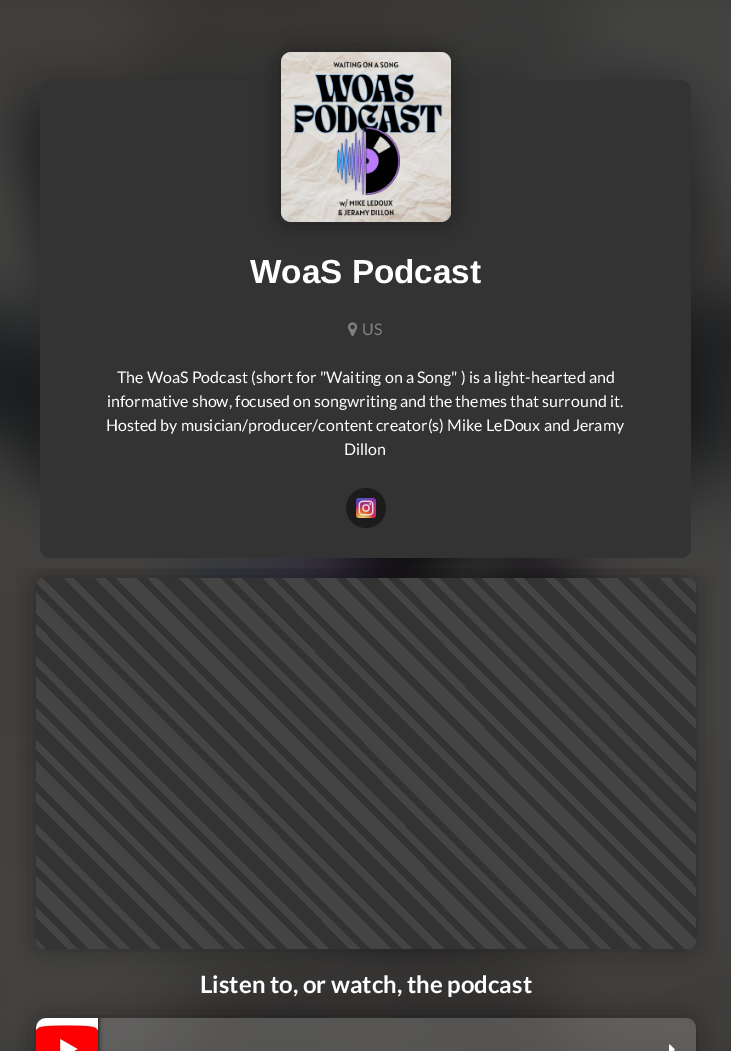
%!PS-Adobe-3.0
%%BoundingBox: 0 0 731 1051
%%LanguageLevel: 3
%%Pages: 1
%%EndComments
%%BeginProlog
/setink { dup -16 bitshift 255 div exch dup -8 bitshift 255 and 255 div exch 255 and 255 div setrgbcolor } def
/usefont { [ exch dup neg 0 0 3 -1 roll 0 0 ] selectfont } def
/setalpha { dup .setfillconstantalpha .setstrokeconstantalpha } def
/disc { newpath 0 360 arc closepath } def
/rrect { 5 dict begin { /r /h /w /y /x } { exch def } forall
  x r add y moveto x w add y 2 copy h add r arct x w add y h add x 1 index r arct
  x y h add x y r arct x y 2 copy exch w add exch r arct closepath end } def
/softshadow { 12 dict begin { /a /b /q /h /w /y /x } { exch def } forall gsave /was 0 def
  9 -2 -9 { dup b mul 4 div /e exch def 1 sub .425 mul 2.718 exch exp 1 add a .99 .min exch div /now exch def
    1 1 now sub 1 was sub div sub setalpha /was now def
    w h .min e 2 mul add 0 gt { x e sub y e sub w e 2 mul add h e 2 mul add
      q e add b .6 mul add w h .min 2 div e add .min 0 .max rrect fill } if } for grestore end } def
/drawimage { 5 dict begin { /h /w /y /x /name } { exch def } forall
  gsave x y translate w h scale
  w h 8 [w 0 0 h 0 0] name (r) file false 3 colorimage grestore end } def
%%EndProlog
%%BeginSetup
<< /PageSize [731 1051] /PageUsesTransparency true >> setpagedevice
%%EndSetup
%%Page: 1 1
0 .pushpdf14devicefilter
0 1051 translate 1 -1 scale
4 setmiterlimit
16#000000 setink
0 0 731 1051 rectfill
(img1.raw) 0 0 731 1051 drawimage
gsave
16 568 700 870 rectclip
36 578 660 371 10 12.5 0.35 softshadow
grestore
16#333333 setink
40 80 651 478 10 rrect fill
16#000000 setink
281 52 170 170 10 12.5 0.35 softshadow
16#CCCCCC setink
281 52 170 170 10 rrect fill
(img2.raw) 281 52 170 170 drawimage
/LiberationSans-Bold 33.25 usefont
16#FFFFFF setink
250 283 moveto (WoaS Podcast) show
(img3.raw) 348 322 10 15 drawimage
/Lato-Regular 16 usefont
16#808080 setink
362 335 moveto (US) show
16#FFFFFF setink
[
    [(The WoaS Podcast \(short for "Waiting on a Song" \) is a light-hearted and) 117 383]
    [(informative show, focused on songwriting and the themes that surround it.) 107 407]
    [(Hosted by musician/producer/content creator\(s\) Mike LeDoux and Jeramy) 106 431]
    [(Dillon) 344 455]
] { aload pop moveto show } forall
16#1C1C1C setink
366 508 20 disc fill
(img4.raw) 356 498 20 20 drawimage
gsave 36 578 660 371 10 rrect clip newpath
<< /ShadingType 2 /ColorSpace /DeviceRGB /Coords [108 1021 632 498] /Extend [true true] /Function << /FunctionType 3 /Domain [0 1] /Functions [<< /FunctionType 2 /Domain [0 1] /C0 [0.267 0.267 0.267] /C1 [0.267 0.267 0.267] /N 1 >> << /FunctionType 2 /Domain [0 1] /C0 [0.2 0.2 0.2] /C1 [0.2 0.2 0.2] /N 1 >> << /FunctionType 2 /Domain [0 1] /C0 [0.267 0.267 0.267] /C1 [0.267 0.267 0.267] /N 1 >> << /FunctionType 2 /Domain [0 1] /C0 [0.2 0.2 0.2] /C1 [0.2 0.2 0.2] /N 1 >> << /FunctionType 2 /Domain [0 1] /C0 [0.267 0.267 0.267] /C1 [0.267 0.267 0.267] /N 1 >> << /FunctionType 2 /Domain [0 1] /C0 [0.2 0.2 0.2] /C1 [0.2 0.2 0.2] /N 1 >> << /FunctionType 2 /Domain [0 1] /C0 [0.267 0.267 0.267] /C1 [0.267 0.267 0.267] /N 1 >> << /FunctionType 2 /Domain [0 1] /C0 [0.2 0.2 0.2] /C1 [0.2 0.2 0.2] /N 1 >> << /FunctionType 2 /Domain [0 1] /C0 [0.267 0.267 0.267] /C1 [0.267 0.267 0.267] /N 1 >> << /FunctionType 2 /Domain [0 1] /C0 [0.2 0.2 0.2] /C1 [0.2 0.2 0.2] /N 1 >> << /FunctionType 2 /Domain [0 1] /C0 [0.267 0.267 0.267] /C1 [0.267 0.267 0.267] /N 1 >> << /FunctionType 2 /Domain [0 1] /C0 [0.2 0.2 0.2] /C1 [0.2 0.2 0.2] /N 1 >> << /FunctionType 2 /Domain [0 1] /C0 [0.267 0.267 0.267] /C1 [0.267 0.267 0.267] /N 1 >> << /FunctionType 2 /Domain [0 1] /C0 [0.2 0.2 0.2] /C1 [0.2 0.2 0.2] /N 1 >> << /FunctionType 2 /Domain [0 1] /C0 [0.267 0.267 0.267] /C1 [0.267 0.267 0.267] /N 1 >> << /FunctionType 2 /Domain [0 1] /C0 [0.2 0.2 0.2] /C1 [0.2 0.2 0.2] /N 1 >> << /FunctionType 2 /Domain [0 1] /C0 [0.267 0.267 0.267] /C1 [0.267 0.267 0.267] /N 1 >> << /FunctionType 2 /Domain [0 1] /C0 [0.2 0.2 0.2] /C1 [0.2 0.2 0.2] /N 1 >> << /FunctionType 2 /Domain [0 1] /C0 [0.267 0.267 0.267] /C1 [0.267 0.267 0.267] /N 1 >> << /FunctionType 2 /Domain [0 1] /C0 [0.2 0.2 0.2] /C1 [0.2 0.2 0.2] /N 1 >> << /FunctionType 2 /Domain [0 1] /C0 [0.267 0.267 0.267] /C1 [0.267 0.267 0.267] /N 1 >> << /FunctionType 2 /Domain [0 1] /C0 [0.2 0.2 0.2] /C1 [0.2 0.2 0.2] /N 1 >> << /FunctionType 2 /Domain [0 1] /C0 [0.267 0.267 0.267] /C1 [0.267 0.267 0.267] /N 1 >> << /FunctionType 2 /Domain [0 1] /C0 [0.2 0.2 0.2] /C1 [0.2 0.2 0.2] /N 1 >> << /FunctionType 2 /Domain [0 1] /C0 [0.267 0.267 0.267] /C1 [0.267 0.267 0.267] /N 1 >> << /FunctionType 2 /Domain [0 1] /C0 [0.2 0.2 0.2] /C1 [0.2 0.2 0.2] /N 1 >> << /FunctionType 2 /Domain [0 1] /C0 [0.267 0.267 0.267] /C1 [0.267 0.267 0.267] /N 1 >> << /FunctionType 2 /Domain [0 1] /C0 [0.2 0.2 0.2] /C1 [0.2 0.2 0.2] /N 1 >> << /FunctionType 2 /Domain [0 1] /C0 [0.267 0.267 0.267] /C1 [0.267 0.267 0.267] /N 1 >> << /FunctionType 2 /Domain [0 1] /C0 [0.2 0.2 0.2] /C1 [0.2 0.2 0.2] /N 1 >> << /FunctionType 2 /Domain [0 1] /C0 [0.267 0.267 0.267] /C1 [0.267 0.267 0.267] /N 1 >> << /FunctionType 2 /Domain [0 1] /C0 [0.2 0.2 0.2] /C1 [0.2 0.2 0.2] /N 1 >> << /FunctionType 2 /Domain [0 1] /C0 [0.267 0.267 0.267] /C1 [0.267 0.267 0.267] /N 1 >> << /FunctionType 2 /Domain [0 1] /C0 [0.2 0.2 0.2] /C1 [0.2 0.2 0.2] /N 1 >> << /FunctionType 2 /Domain [0 1] /C0 [0.267 0.267 0.267] /C1 [0.267 0.267 0.267] /N 1 >> << /FunctionType 2 /Domain [0 1] /C0 [0.2 0.2 0.2] /C1 [0.2 0.2 0.2] /N 1 >> << /FunctionType 2 /Domain [0 1] /C0 [0.267 0.267 0.267] /C1 [0.267 0.267 0.267] /N 1 >> << /FunctionType 2 /Domain [0 1] /C0 [0.2 0.2 0.2] /C1 [0.2 0.2 0.2] /N 1 >> << /FunctionType 2 /Domain [0 1] /C0 [0.267 0.267 0.267] /C1 [0.267 0.267 0.267] /N 1 >> << /FunctionType 2 /Domain [0 1] /C0 [0.2 0.2 0.2] /C1 [0.2 0.2 0.2] /N 1 >> << /FunctionType 2 /Domain [0 1] /C0 [0.267 0.267 0.267] /C1 [0.267 0.267 0.267] /N 1 >> << /FunctionType 2 /Domain [0 1] /C0 [0.2 0.2 0.2] /C1 [0.2 0.2 0.2] /N 1 >> << /FunctionType 2 /Domain [0 1] /C0 [0.267 0.267 0.267] /C1 [0.267 0.267 0.267] /N 1 >> << /FunctionType 2 /Domain [0 1] /C0 [0.2 0.2 0.2] /C1 [0.2 0.2 0.2] /N 1 >> << /FunctionType 2 /Domain [0 1] /C0 [0.267 0.267 0.267] /C1 [0.267 0.267 0.267] /N 1 >> << /FunctionType 2 /Domain [0 1] /C0 [0.2 0.2 0.2] /C1 [0.2 0.2 0.2] /N 1 >> << /FunctionType 2 /Domain [0 1] /C0 [0.267 0.267 0.267] /C1 [0.267 0.267 0.267] /N 1 >> << /FunctionType 2 /Domain [0 1] /C0 [0.2 0.2 0.2] /C1 [0.2 0.2 0.2] /N 1 >> << /FunctionType 2 /Domain [0 1] /C0 [0.267 0.267 0.267] /C1 [0.267 0.267 0.267] /N 1 >> << /FunctionType 2 /Domain [0 1] /C0 [0.2 0.2 0.2] /C1 [0.2 0.2 0.2] /N 1 >> << /FunctionType 2 /Domain [0 1] /C0 [0.267 0.267 0.267] /C1 [0.267 0.267 0.267] /N 1 >> << /FunctionType 2 /Domain [0 1] /C0 [0.2 0.2 0.2] /C1 [0.2 0.2 0.2] /N 1 >> << /FunctionType 2 /Domain [0 1] /C0 [0.267 0.267 0.267] /C1 [0.267 0.267 0.267] /N 1 >> << /FunctionType 2 /Domain [0 1] /C0 [0.2 0.2 0.2] /C1 [0.2 0.2 0.2] /N 1 >> << /FunctionType 2 /Domain [0 1] /C0 [0.267 0.267 0.267] /C1 [0.267 0.267 0.267] /N 1 >> << /FunctionType 2 /Domain [0 1] /C0 [0.2 0.2 0.2] /C1 [0.2 0.2 0.2] /N 1 >> << /FunctionType 2 /Domain [0 1] /C0 [0.267 0.267 0.267] /C1 [0.267 0.267 0.267] /N 1 >> << /FunctionType 2 /Domain [0 1] /C0 [0.2 0.2 0.2] /C1 [0.2 0.2 0.2] /N 1 >> << /FunctionType 2 /Domain [0 1] /C0 [0.267 0.267 0.267] /C1 [0.267 0.267 0.267] /N 1 >> << /FunctionType 2 /Domain [0 1] /C0 [0.2 0.2 0.2] /C1 [0.2 0.2 0.2] /N 1 >> << /FunctionType 2 /Domain [0 1] /C0 [0.267 0.267 0.267] /C1 [0.267 0.267 0.267] /N 1 >> << /FunctionType 2 /Domain [0 1] /C0 [0.2 0.2 0.2] /C1 [0.2 0.2 0.2] /N 1 >> << /FunctionType 2 /Domain [0 1] /C0 [0.267 0.267 0.267] /C1 [0.267 0.267 0.267] /N 1 >> << /FunctionType 2 /Domain [0 1] /C0 [0.2 0.2 0.2] /C1 [0.2 0.2 0.2] /N 1 >> << /FunctionType 2 /Domain [0 1] /C0 [0.267 0.267 0.267] /C1 [0.267 0.267 0.267] /N 1 >> << /FunctionType 2 /Domain [0 1] /C0 [0.2 0.2 0.2] /C1 [0.2 0.2 0.2] /N 1 >> << /FunctionType 2 /Domain [0 1] /C0 [0.267 0.267 0.267] /C1 [0.267 0.267 0.267] /N 1 >> << /FunctionType 2 /Domain [0 1] /C0 [0.2 0.2 0.2] /C1 [0.2 0.2 0.2] /N 1 >> << /FunctionType 2 /Domain [0 1] /C0 [0.267 0.267 0.267] /C1 [0.267 0.267 0.267] /N 1 >> << /FunctionType 2 /Domain [0 1] /C0 [0.2 0.2 0.2] /C1 [0.2 0.2 0.2] /N 1 >> << /FunctionType 2 /Domain [0 1] /C0 [0.267 0.267 0.267] /C1 [0.267 0.267 0.267] /N 1 >> << /FunctionType 2 /Domain [0 1] /C0 [0.2 0.2 0.2] /C1 [0.2 0.2 0.2] /N 1 >> << /FunctionType 2 /Domain [0 1] /C0 [0.267 0.267 0.267] /C1 [0.267 0.267 0.267] /N 1 >> << /FunctionType 2 /Domain [0 1] /C0 [0.2 0.2 0.2] /C1 [0.2 0.2 0.2] /N 1 >>] /Bounds [0.01 0.03 0.04 0.05 0.07 0.08 0.09 0.11 0.12 0.14 0.15 0.16 0.18 0.19 0.2 0.22 0.23 0.24 0.26 0.27 0.28 0.3 0.31 0.32 0.34 0.35 0.36 0.38 0.39 0.41 0.42 0.43 0.45 0.46 0.47 0.49 0.5 0.51 0.53 0.54 0.55 0.57 0.58 0.59 0.61 0.62 0.64 0.65 0.66 0.68 0.69 0.7 0.72 0.73 0.74 0.76 0.77 0.78 0.8 0.81 0.82 0.84 0.85 0.86 0.88 0.89 0.91 0.92 0.93 0.95 0.96 0.97 0.99] /Encode [0 1 0 1 0 1 0 1 0 1 0 1 0 1 0 1 0 1 0 1 0 1 0 1 0 1 0 1 0 1 0 1 0 1 0 1 0 1 0 1 0 1 0 1 0 1 0 1 0 1 0 1 0 1 0 1 0 1 0 1 0 1 0 1 0 1 0 1 0 1 0 1 0 1 0 1 0 1 0 1 0 1 0 1 0 1 0 1 0 1 0 1 0 1 0 1 0 1 0 1 0 1 0 1 0 1 0 1 0 1 0 1 0 1 0 1 0 1 0 1 0 1 0 1 0 1 0 1 0 1 0 1 0 1 0 1 0 1 0 1 0 1 0 1 0 1 0 1] >> >> shfill grestore
/Lato-Bold 24 usefont
16#FFFFFF setink
200 993 moveto (Listen to, or watch, the podcast) show
gsave
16 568 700 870 rectclip
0 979 moveto 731 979 lineto 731 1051 lineto 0 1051 lineto closepath 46 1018 moveto 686 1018 lineto 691.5 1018 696 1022.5 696 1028 curveto 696 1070 lineto 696 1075.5 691.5 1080 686 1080 curveto 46 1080 lineto 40.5 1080 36 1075.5 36 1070 curveto 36 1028 lineto 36 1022.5 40.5 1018 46 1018 curveto closepath eoclip newpath
16#000000 setink
36 1018 660 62 10 12.5 0.35 softshadow
grestore
0.17 setalpha
36 1018 660 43 10 rrect fill
gsave
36 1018 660 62 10 rrect clip newpath
1 setalpha
16#000000 setink
36 1018 62 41 0 2.5 1 softshadow
grestore
1 setalpha
(img5.raw) 36 1018 62 33 drawimage
(img6.raw) 669 1044 6 7 drawimage
.poppdf14devicefilter showpage
%%EOF
